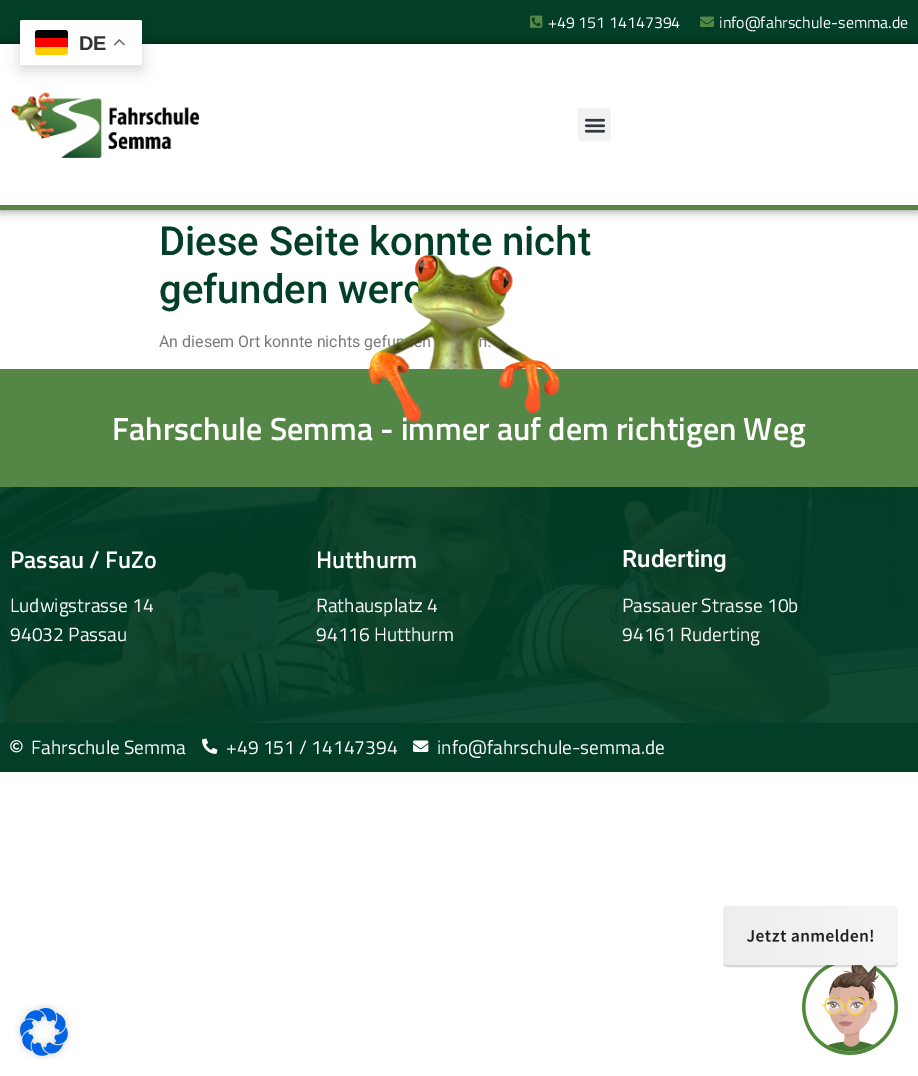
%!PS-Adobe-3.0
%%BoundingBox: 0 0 918 1076
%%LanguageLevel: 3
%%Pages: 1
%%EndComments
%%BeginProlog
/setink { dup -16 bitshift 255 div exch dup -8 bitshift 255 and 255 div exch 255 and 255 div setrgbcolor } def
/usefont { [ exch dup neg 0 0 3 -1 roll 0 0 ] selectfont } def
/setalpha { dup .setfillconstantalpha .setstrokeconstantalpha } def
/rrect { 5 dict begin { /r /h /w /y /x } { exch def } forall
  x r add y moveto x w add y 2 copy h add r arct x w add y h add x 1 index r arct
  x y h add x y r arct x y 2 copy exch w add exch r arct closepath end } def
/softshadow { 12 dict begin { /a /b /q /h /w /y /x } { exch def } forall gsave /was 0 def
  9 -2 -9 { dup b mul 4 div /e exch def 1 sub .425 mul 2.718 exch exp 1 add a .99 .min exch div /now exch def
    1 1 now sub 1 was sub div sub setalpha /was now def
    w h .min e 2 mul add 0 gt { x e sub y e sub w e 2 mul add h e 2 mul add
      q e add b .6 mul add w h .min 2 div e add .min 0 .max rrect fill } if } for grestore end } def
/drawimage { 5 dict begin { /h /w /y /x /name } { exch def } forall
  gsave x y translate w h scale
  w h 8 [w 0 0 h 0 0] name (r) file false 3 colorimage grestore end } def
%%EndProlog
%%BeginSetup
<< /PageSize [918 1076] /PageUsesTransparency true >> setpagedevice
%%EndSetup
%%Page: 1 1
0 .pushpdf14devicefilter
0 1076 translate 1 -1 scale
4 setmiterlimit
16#FFFFFF setink
0 0 918 1076 rectfill
16#023F26 setink
0 0 918 44 rectfill
(img1.raw) 530 15 13 13 drawimage
/TitilliumWeb-Regular 16 usefont
16#FFFFFF setink
548 28 moveto (+49 151 14147394) show
(img2.raw) 700 16 14 11 drawimage
719 28 moveto (info@fahrschule-semma.de) show
gsave
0 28 moveto 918 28 lineto 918 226 lineto 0 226 lineto closepath 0 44 moveto 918 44 lineto 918 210 lineto 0 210 lineto closepath eoclip newpath
16#000000 setink
0 44 918 166 0 5 0.5 softshadow
grestore
16#548745 setink
0 205 918 5 rectfill
(img3.raw) 11 92 188 66 drawimage
16#F2F2F2 setink
578 108 33 33 3 rrect fill
(img4.raw) 584 118 22 15 drawimage
16#000000 setink
20 25 122 45 2 7.5 0.15 softshadow
16#FFFFFF setink
20 20 122 45 2 rrect fill
16#FFCC00 setink
35 47 moveto 68 47 lineto 68 52 lineto 68 53.5 66.5 55 65 55 curveto 38 55 lineto 36.5 55 35 53.5 35 52 curveto closepath fill
16#000000 setink
38 30 moveto 65 30 lineto 66.5 30 68 31.5 68 33 curveto 68 38 lineto 35 38 lineto 35 33 lineto 35 31.5 36.5 30 38 30 curveto closepath fill
16#FF0000 setink
35 38 33 9 rectfill
/LiberationSans-Bold 20 usefont
16#333333 setink
79 50 moveto (DE) show
(img5.raw) 114 39 11 7 drawimage
/Roboto-Medium 40 usefont
16#023F26 setink
159 255 moveto (Diese Seite konnte nicht) show
159 303 moveto (gefunden wer) show
/Roboto-Regular 16 usefont
16#7A7A7A setink
159 347 moveto (An diesem Ort konnte nichts gefunden) show
478 347 moveto (n.) show
16#548745 setink
0 369 918 118 rectfill
(img6.raw) 368 254 192 169 drawimage
/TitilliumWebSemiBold-SemiBold 32 usefont
16#FFFFFF setink
112 440 moveto (Fahrschule Semma - immer auf dem richtigen Weg) show
16#023F26 setink
0 487 918 285 rectfill
(img7.raw) 0 487 918 236 drawimage
/TitilliumWebSemiBold-SemiBold 24 usefont
16#FFFFFF setink
10 568 moveto (Passau / FuZo) show
/TitilliumWeb-Regular 19.25 usefont
10 612 moveto (Ludwigstrasse 14) show
10 641 moveto (94032 Passau) show
/TitilliumWebSemiBold-SemiBold 24 usefont
316 568 moveto (Hutthurm) show
/TitilliumWeb-Regular 19.25 usefont
316 612 moveto (Rathausplatz 4) show
316 641 moveto (94116 Hutthurm) show
/Roboto-SemiBold 24 usefont
622 567 moveto (Ruderting) show
/TitilliumWeb-Regular 19.25 usefont
16#FFF9F9 setink
622 612 moveto (Passauer Strasse 10b) show
622 641 moveto (94161 Ruderting) show
(img8.raw) 10 740 13 13 drawimage
16#FFFFFF setink
31 754 moveto (Fahrschule Semma) show
(img9.raw) 202 738 16 16 drawimage
226 754 moveto (+49 151 / 14147394) show
(img10.raw) 413 740 16 12 drawimage
437 754 moveto (info@fahrschule-semma.de) show
(img11.raw) 15 1003 57 57 drawimage
(img13.raw) 802 965 96 90 drawimage
(img12.raw) 723 906 175 70 drawimage
.poppdf14devicefilter showpage
%%EOF
